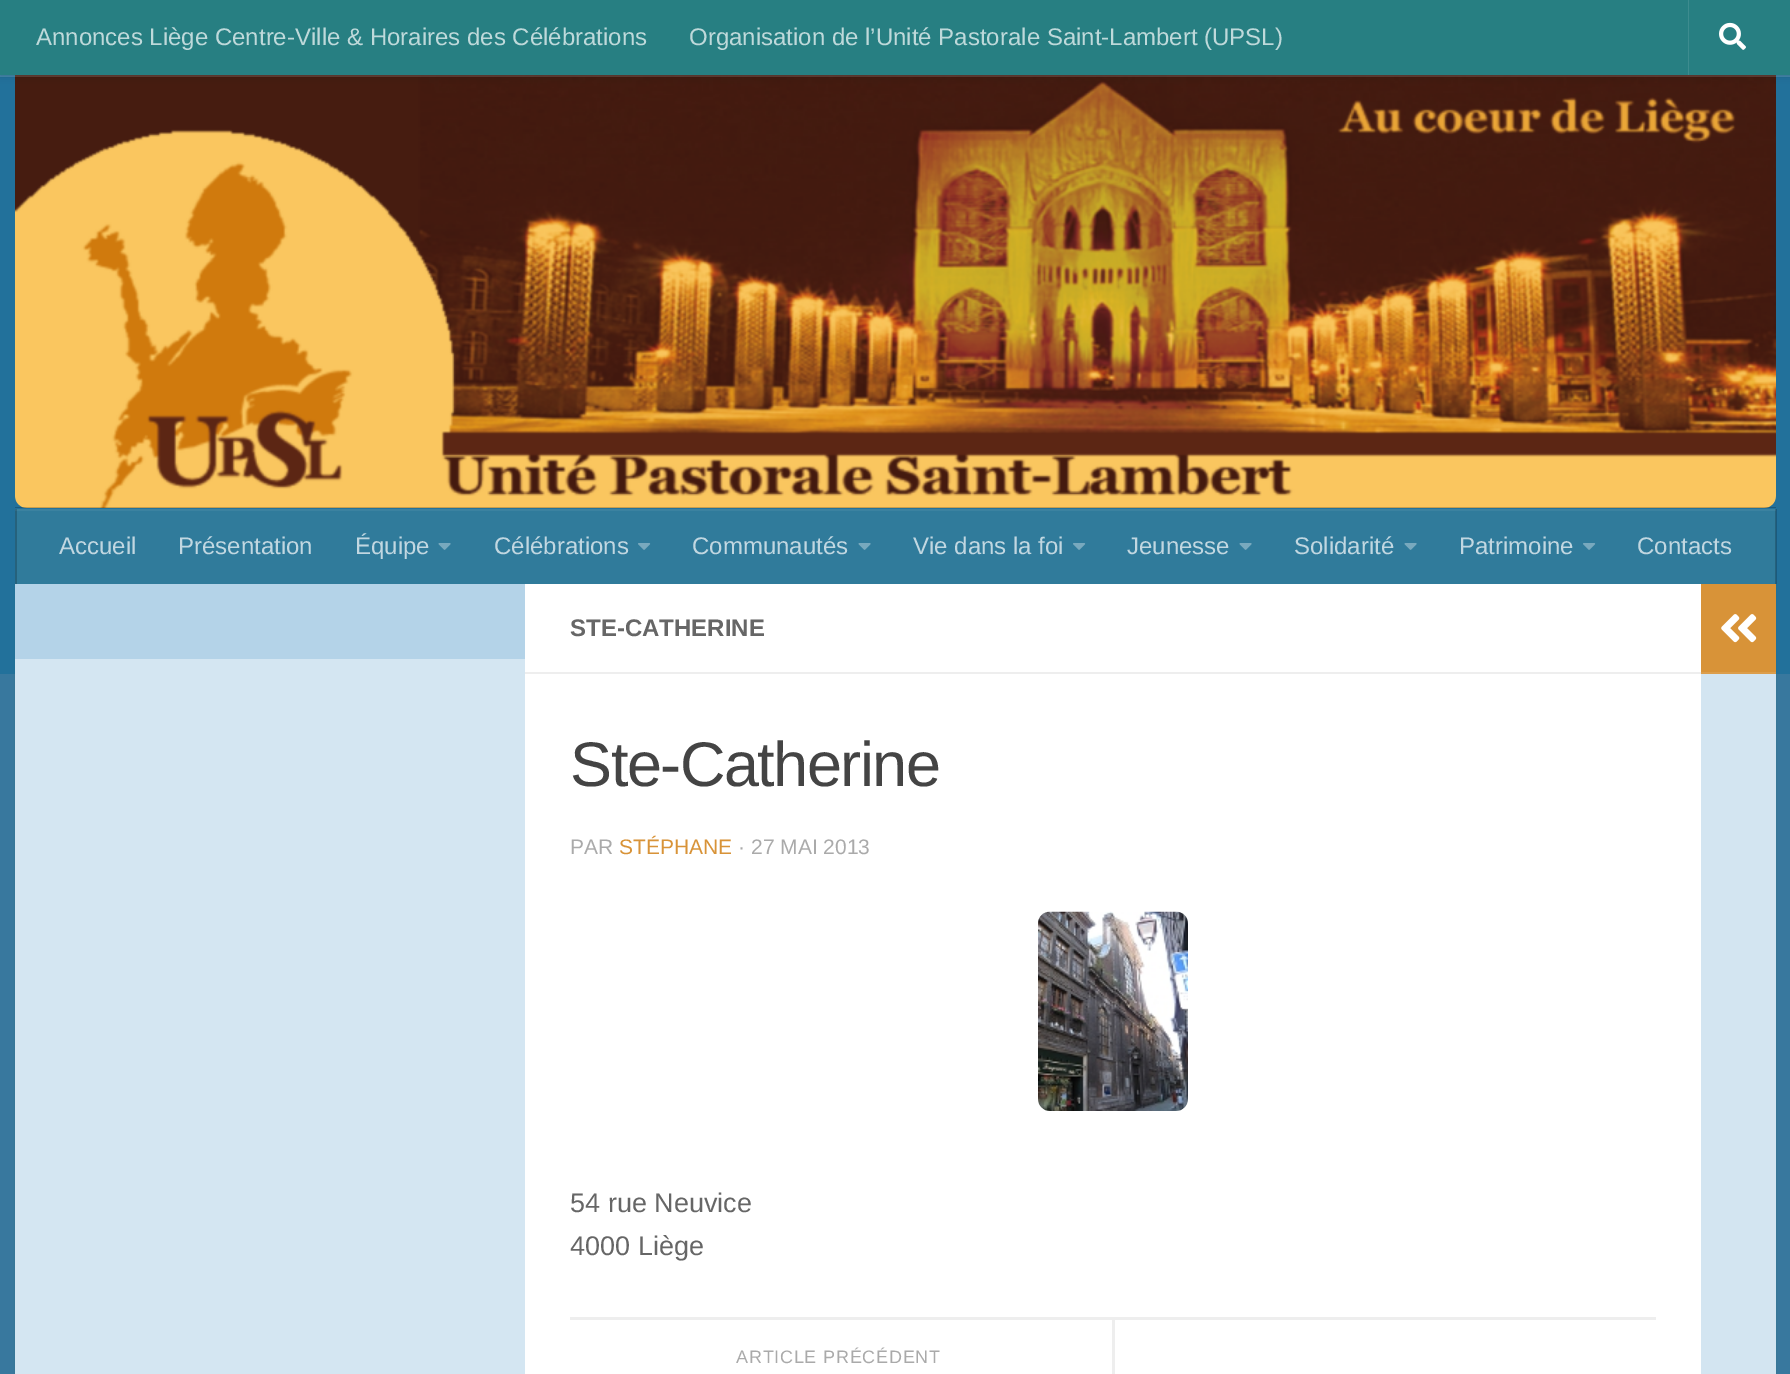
%!PS-Adobe-3.0
%%BoundingBox: 0 0 1790 1374
%%LanguageLevel: 3
%%Pages: 1
%%EndComments
%%BeginProlog
/setink { dup -16 bitshift 255 div exch dup -8 bitshift 255 and 255 div exch 255 and 255 div setrgbcolor } def
/usefont { [ exch dup neg 0 0 3 -1 roll 0 0 ] selectfont } def
/setalpha { dup .setfillconstantalpha .setstrokeconstantalpha } def
/rrect { 5 dict begin { /r /h /w /y /x } { exch def } forall
  x r add y moveto x w add y 2 copy h add r arct x w add y h add x 1 index r arct
  x y h add x y r arct x y 2 copy exch w add exch r arct closepath end } def
/softshadow { 12 dict begin { /a /b /q /h /w /y /x } { exch def } forall gsave /was 0 def
  9 -2 -9 { dup b mul 4 div /e exch def 1 sub .425 mul 2.718 exch exp 1 add a .99 .min exch div /now exch def
    1 1 now sub 1 was sub div sub setalpha /was now def
    w h .min e 2 mul add 0 gt { x e sub y e sub w e 2 mul add h e 2 mul add
      q e add b .6 mul add w h .min 2 div e add .min 0 .max rrect fill } if } for grestore end } def
/drawimage { 5 dict begin { /h /w /y /x /name } { exch def } forall
  gsave x y translate w h scale
  w h 8 [w 0 0 h 0 0] name (r) file false 3 colorimage grestore end } def
%%EndProlog
%%BeginSetup
<< /PageSize [1790 1374] /PageUsesTransparency true >> setpagedevice
%%EndSetup
%%Page: 1 1
0 .pushpdf14devicefilter
0 1374 translate 1 -1 scale
4 setmiterlimit
16#38789E setink
0 0 1790 1374 rectfill
16#000000 setink
15 585 1761 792 0 1 0.1 softshadow
0.4 setalpha
16#006696 setink
0 75 1790 599 rectfill
1 setalpha
(img2.raw) 15 75 1761 433 drawimage
0.15 setalpha
16#FFFFFF setink
0 75 1790 2 rectfill
1 setalpha
16#000000 setink
0 0 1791 75 0 4 0.2 softshadow
16#277F82 setink
0 0 1790 75 rectfill
/LiberationSans-Regular 24 usefont
16#BED9DA setink
36 45 moveto (Annonces Liège Centre-Ville & Horaires des Célébrations) show
689 45 moveto (Organisation de l’Unité Pastorale Saint-Lambert \(UPSL\)) show
16#3D8C8F setink
1688 0 1 75 rectfill
(img1.raw) 1719 22 27 28 drawimage
0.2 setalpha
[
    [15 507 1761 1 16#000000]
] { aload pop setink rectfill } forall
1 setalpha
[
    [17 509 1759 75 16#307B9B]
] { aload pop setink rectfill } forall
0.2 setalpha
[
    [1775 509 2 75 16#000000]
] { aload pop setink rectfill } forall
1 setalpha
[
    [15 509 2 75 16#26627C]
] { aload pop setink rectfill } forall
0.05 setalpha
[
    [15 509 1761 2 16#FFFFFF]
] { aload pop setink rectfill } forall
1 setalpha
16#C1D7E1 setink
[
    [(Accueil) 59 554]
    [(Présentation) 178 554]
    [(Équipe) 355 554]
] { aload pop moveto show } forall
(img3.raw) 438 543 13 7 drawimage
494 554 moveto (Célébrations) show
(img4.raw) 638 543 13 7 drawimage
692 554 moveto (Communautés) show
(img3.raw) 858 543 13 7 drawimage
913 554 moveto (Vie dans la foi) show
(img4.raw) 1073 543 13 7 drawimage
1127 554 moveto (Jeunesse) show
(img3.raw) 1239 543 13 7 drawimage
1294 554 moveto (Solidarité) show
(img3.raw) 1404 543 13 7 drawimage
1459 554 moveto (Patrimoine) show
(img4.raw) 1583 543 13 7 drawimage
1637 554 moveto (Contacts) show
[
    [525 584 1176 790 16#FFFFFF]
    [15 659 510 715 16#D4E6F2]
    [15 584 510 75 16#B4D3E8]
    [525 672 1176 2 16#EEEEEE]
] { aload pop setink rectfill } forall
/LiberationSans-Bold 24 usefont
16#666666 setink
570 636 moveto (STE-CATHERINE) show
/LiberationSans-Regular 63 usefont
16#444444 setink
570 786 moveto -1.5 0 (Ste-Catherine) ashow
/LiberationSans-Regular 21 usefont
16#AAAAAA setink
570 854 moveto (PAR) show
16#D89338 setink
619 854 moveto (STÉPHANE) show
16#AAAAAA setink
738 854 moveto (· 27 MAI 2013) show
(img5.raw) 1038 911 150 200 drawimage
/LiberationSans-Regular 27 usefont
16#666666 setink
570 1212 moveto (54 rue Neuvice) show
570 1255 moveto (4000 Liège) show
16#EEEEEE setink
570 1317 1086 3 rectfill
572 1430 moveto 1115 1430 lineto 1115 1320 lineto 1113 1320 lineto 1113 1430 lineto closepath fill
1112 1320 1 54 rectfill
/LiberationSans-Regular 18 usefont
16#AAAAAA setink
736 1363 moveto 0.75 0 (ARTICLE PRÉCÉDENT) ashow
16#D89338 setink
1701 584 75 88 rectfill
16#DC9E4C setink
1701 672 75 2 rectfill
(img6.raw) 1721 614 36 29 drawimage
16#D3E5F1 setink
1701 674 75 700 rectfill
.poppdf14devicefilter showpage
%%EOF
